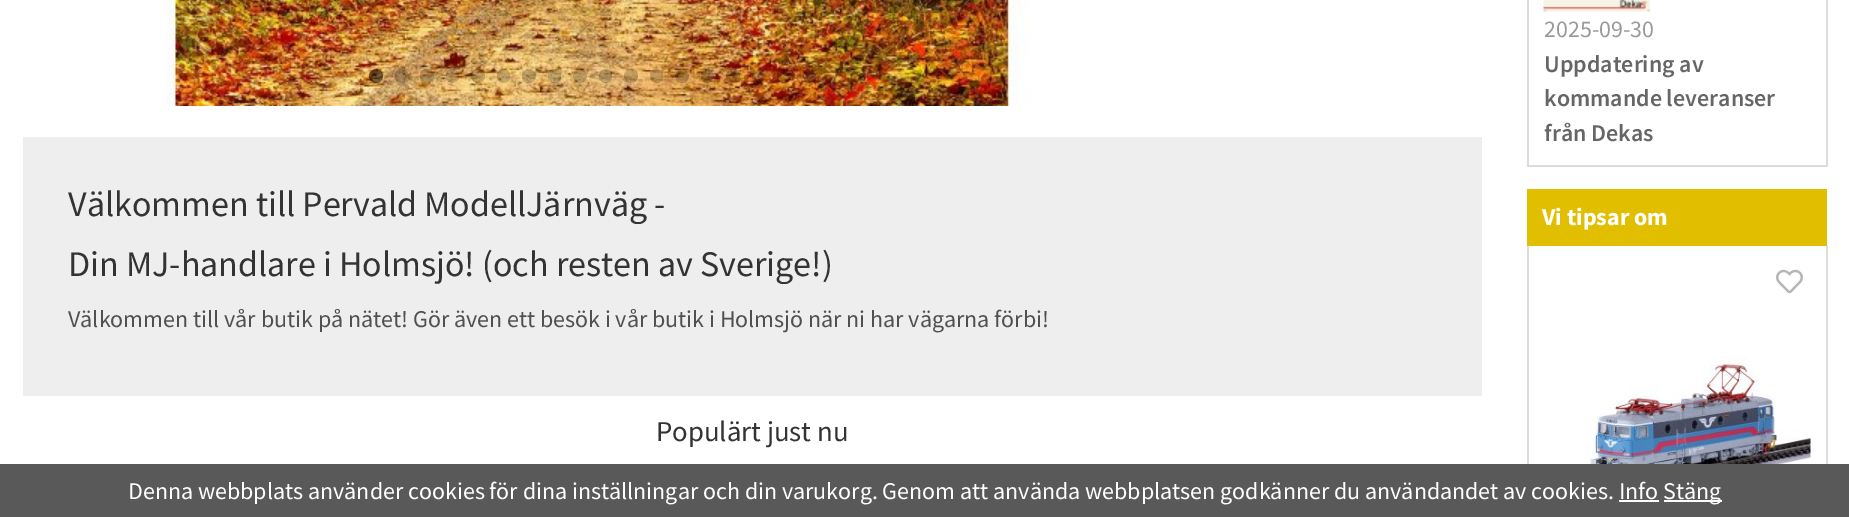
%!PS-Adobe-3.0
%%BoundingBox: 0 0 1849 517
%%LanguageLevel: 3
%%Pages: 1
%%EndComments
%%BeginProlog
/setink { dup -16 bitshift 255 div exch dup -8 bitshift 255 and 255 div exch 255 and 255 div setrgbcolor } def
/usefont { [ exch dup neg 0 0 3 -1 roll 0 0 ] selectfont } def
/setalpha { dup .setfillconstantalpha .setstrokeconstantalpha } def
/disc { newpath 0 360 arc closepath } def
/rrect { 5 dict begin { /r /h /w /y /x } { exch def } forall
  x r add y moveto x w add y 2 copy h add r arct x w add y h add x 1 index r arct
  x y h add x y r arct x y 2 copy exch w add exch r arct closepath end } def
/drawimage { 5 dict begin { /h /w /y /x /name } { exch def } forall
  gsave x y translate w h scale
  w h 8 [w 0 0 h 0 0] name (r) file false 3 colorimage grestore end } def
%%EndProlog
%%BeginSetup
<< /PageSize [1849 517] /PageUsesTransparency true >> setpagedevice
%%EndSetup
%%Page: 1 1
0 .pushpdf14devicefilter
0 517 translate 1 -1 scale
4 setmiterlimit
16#FFFFFF setink
0 0 1849 517 rectfill
[
    [1826 0 2 167 16#DCDCDC]
    [1527 165 300 2 16#DCDCDC]
    [1527 0 2 167 16#DCDCDC]
] { aload pop setink rectfill } forall
(img1.raw) 1543 0 107 12 drawimage
/SourceSansPro-Regular 24 usefont
16#999999 setink
1544 37 moveto (2025-09-30) show
/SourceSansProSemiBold-SemiBold 24 usefont
16#666666 setink
[
    [(Uppdatering av) 1544 72]
    [(kommande leveranser) 1544 106]
    [(från Dekas) 1544 141]
] { aload pop moveto show } forall
16#E1BE00 setink
1527 189 300 57 rectfill
/SourceSansPro-Bold 24 usefont
16#FFFFFF setink
1542 225 moveto (Vi tipsar om) show
16#DCDCDC setink
1826 246 2 218 rectfill
1527 246 2 218 rectfill
(img2.raw) 1776 269 27 25 drawimage
(img3.raw) 1543 357 268 107 drawimage
(img4.raw) 166 0 864 106 drawimage
0.5 setalpha
16#000000 setink
376 76 7 disc fill
0.2 setalpha
395 69 13 14 6.5 rrect fill
427 76 7 disc fill
446 69 13 14 6.5 rrect fill
478 76 7 disc fill
497 69 13 14 6.5 rrect fill
529 76 7 disc fill
548 69 13 14 6.5 rrect fill
580 76 7 disc fill
599 69 13 14 6.5 rrect fill
631 76 7 disc fill
650 69 13 14 6.5 rrect fill
682 76 7 disc fill
701 69 13 14 6.5 rrect fill
733 76 7 disc fill
752 69 13 14 6.5 rrect fill
784 76 7 disc fill
803 69 13 14 6.5 rrect fill
1 setalpha
16#EEEEEE setink
23 137 1459 259 rectfill
/SourceSansPro-Regular 36 usefont
16#333333 setink
68 216 moveto (Välkommen till Pervald ModellJärnväg -) show
68 276 moveto (Din MJ-handlare i Holmsjö! \(och resten av Sverige!\)) show
/SourceSansPro-Regular 24 usefont
16#505050 setink
68 327 moveto (Välkommen till vår butik på nätet! Gör även ett besök i vår butik i Holmsjö när ni har vägarna förbi!) show
/SourceSansPro-Regular 28.75 usefont
16#333333 setink
656 441 moveto (Populärt just nu) show
16#595959 setink
0 464 1849 53 rectfill
/SourceSansPro-Regular 24 usefont
16#FFFFFF setink
128 499 moveto (Denna webbplats använder cookies för dina inställningar och din varukorg. Genom att använda webbplatsen godkänner du användandet av cookies. Info) show
1664 500 58 2 rectfill
1663 499 moveto (Stäng) show
1619 500 40 2 rectfill
.poppdf14devicefilter showpage
%%EOF
